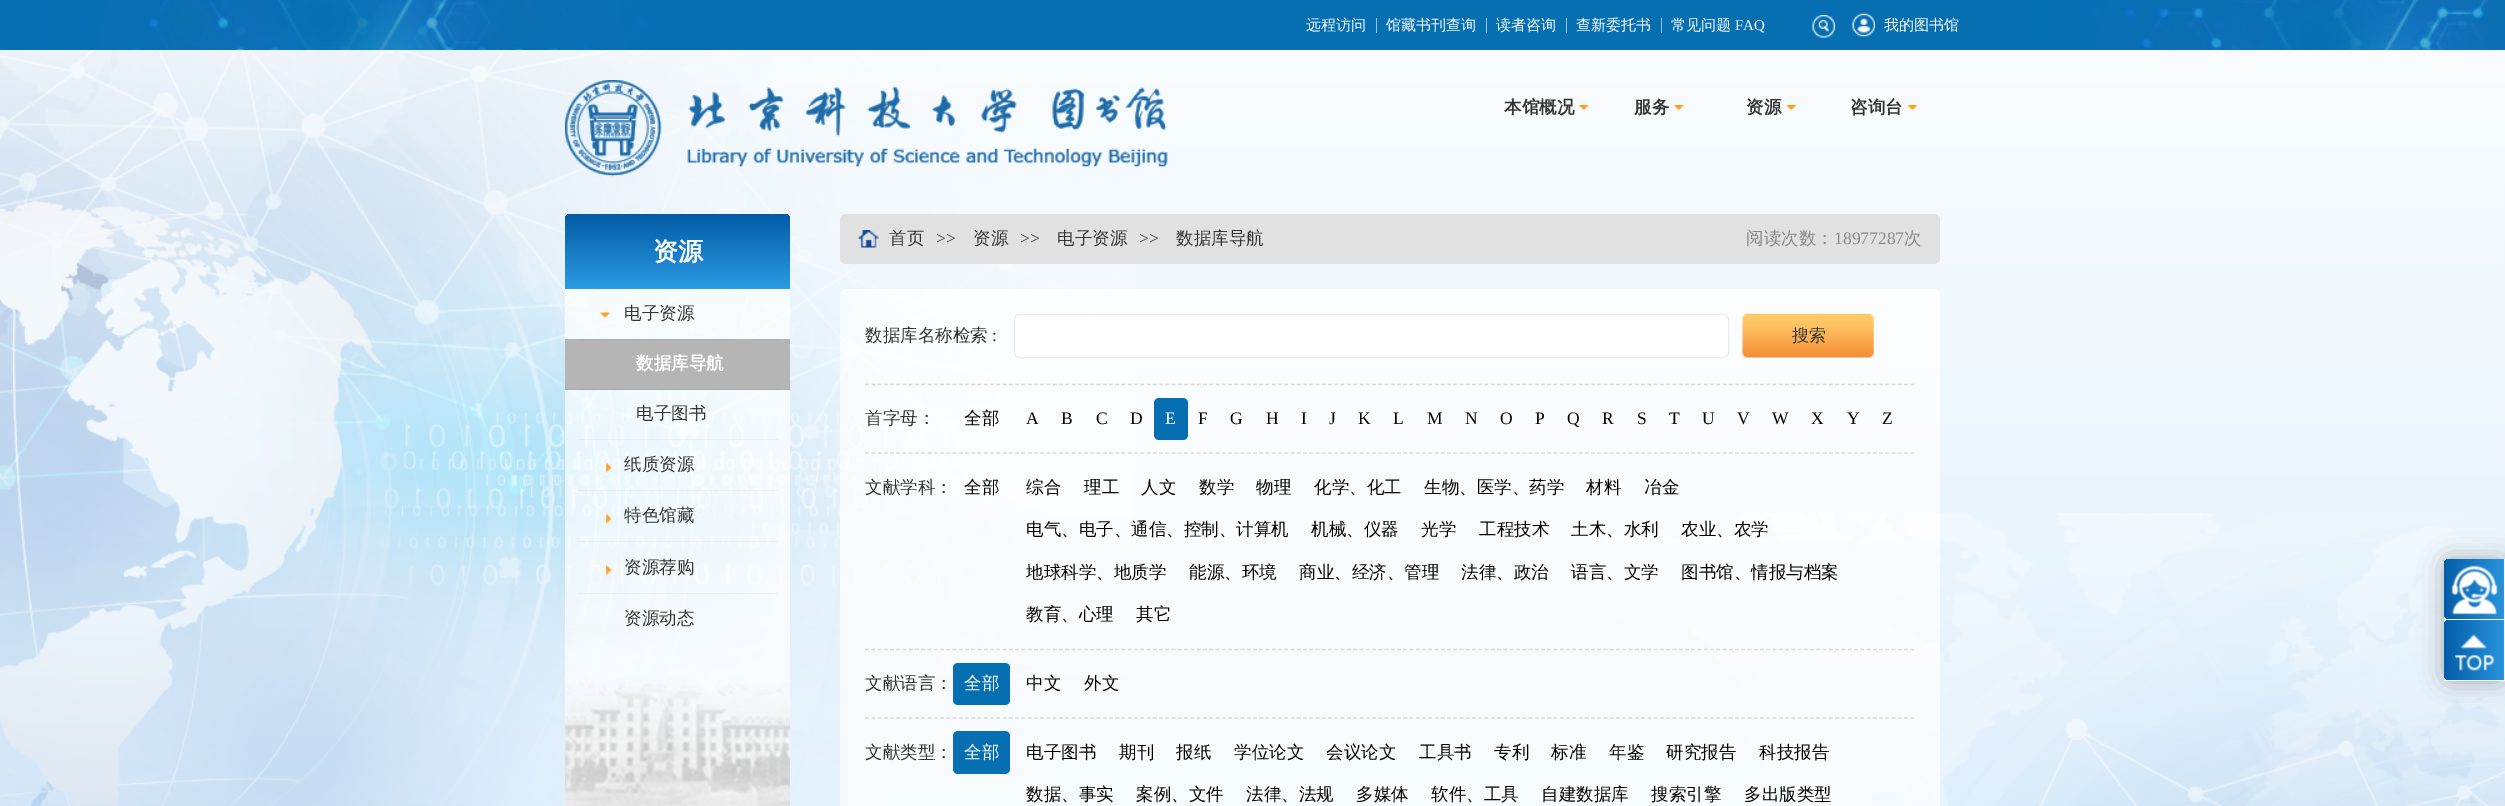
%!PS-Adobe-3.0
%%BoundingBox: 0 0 2505 806
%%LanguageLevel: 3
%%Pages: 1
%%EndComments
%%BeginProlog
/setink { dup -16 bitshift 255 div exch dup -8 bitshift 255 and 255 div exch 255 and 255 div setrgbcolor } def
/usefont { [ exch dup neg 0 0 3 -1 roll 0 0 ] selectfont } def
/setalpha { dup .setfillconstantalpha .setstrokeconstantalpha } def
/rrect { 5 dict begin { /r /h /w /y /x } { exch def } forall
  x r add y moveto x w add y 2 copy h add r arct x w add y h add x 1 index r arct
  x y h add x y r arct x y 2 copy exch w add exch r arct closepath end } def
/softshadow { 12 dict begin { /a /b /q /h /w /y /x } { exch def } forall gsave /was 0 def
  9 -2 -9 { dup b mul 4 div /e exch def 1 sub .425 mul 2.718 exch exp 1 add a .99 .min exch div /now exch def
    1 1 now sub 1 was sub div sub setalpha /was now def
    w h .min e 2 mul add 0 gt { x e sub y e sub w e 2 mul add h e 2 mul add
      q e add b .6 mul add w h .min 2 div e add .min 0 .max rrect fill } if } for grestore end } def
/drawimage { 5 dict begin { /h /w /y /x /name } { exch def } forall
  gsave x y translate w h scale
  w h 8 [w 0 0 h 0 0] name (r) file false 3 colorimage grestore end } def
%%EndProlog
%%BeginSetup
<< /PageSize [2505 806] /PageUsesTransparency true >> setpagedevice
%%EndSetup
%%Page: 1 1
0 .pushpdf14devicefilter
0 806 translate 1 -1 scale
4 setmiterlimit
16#FFFFFF setink
0 0 2505 806 rectfill
(img1.raw) 0 50 2505 756 drawimage
(img2.raw) 0 0 2505 50 drawimage
/WenQuanYiZenHei-Medium 15 usefont
1306 30 moveto (远程访问) show
16#9BC5E0 setink
1376 18 1 15 rectfill
16#FFFFFF setink
1386 30 moveto (馆藏书刊查询) show
16#9BC5E0 setink
1486 18 1 15 rectfill
16#FFFFFF setink
1496 30 moveto (读者咨询) show
16#9BC5E0 setink
1566 18 1 15 rectfill
16#FFFFFF setink
1576 30 moveto (查新委托书) show
16#9BC5E0 setink
1661 18 1 15 rectfill
16#FFFFFF setink
1671 30 moveto (常见问题) show
/LiberationSerif-Regular 15 usefont
1735 30 moveto (FAQ) show
(img3.raw) 1812 15 23 23 drawimage
(img4.raw) 1852 13 23 24 drawimage
/WenQuanYiZenHei-Medium 15 usefont
1884 30 moveto (我的图书馆) show
(img5.raw) 565 80 603 97 drawimage
(img6.raw) 1578 105 11 5 drawimage
/WenQuanYiZenHei-Bold 17.5 usefont
16#333333 setink
1504 113 moveto (本馆概况) show
(img7.raw) 1673 105 11 5 drawimage
1634 113 moveto (服务) show
(img8.raw) 1786 105 11 5 drawimage
1746 113 moveto (资源) show
(img9.raw) 1907 105 11 5 drawimage
1850 113 moveto (咨询台) show
gsave 571 214 moveto 784 214 lineto 787.5 214 790 216.5 790 220 curveto 790 289 lineto 565 289 lineto 565 220 lineto 565 216.5 567.5 214 571 214 curveto closepath clip newpath
<< /ShadingType 2 /ColorSpace /DeviceRGB /Coords [678 214 678 289] /Extend [true true] /Function << /FunctionType 2 /Domain [0 1] /C0 [0.012 0.357 0.651] /C1 [0.173 0.608 0.89] /N 1 >> >> shfill grestore
/WenQuanYiZenHei-Bold 25 usefont
16#FFFFFF setink
653 260 moveto (资源) show
0.7 setalpha
565 289 225 517 rectfill
1 setalpha
(img10.raw) 565 624 225 182 drawimage
0.04 setalpha
16#000000 setink
578 439 200 1 rectfill
1 setalpha
(img11.raw) 600 312 10 6 drawimage
/WenQuanYiZenHei-Medium 17.5 usefont
16#333333 setink
624 319 moveto (电子资源) show
[
    [565 339 225 50 16#B5B5B5]
    [578 339 200 1 16#AEAEAE]
    [565 389 225 1 16#AEAEAE]
] { aload pop setink rectfill } forall
/WenQuanYiZenHei-Bold 17.5 usefont
16#FFFFFF setink
636 369 moveto (数据库导航) show
16#A7A7A7 setink
578 389 200 1 rectfill
/WenQuanYiZenHei-Medium 17.5 usefont
16#333333 setink
636 419 moveto (电子图书) show
0.04 setalpha
16#000000 setink
578 490 200 1 rectfill
1 setalpha
(img12.raw) 606 462 6 11 drawimage
16#333333 setink
624 470 moveto (纸质资源) show
0.04 setalpha
16#000000 setink
578 541 200 1 rectfill
1 setalpha
(img13.raw) 606 513 6 11 drawimage
16#333333 setink
624 521 moveto (特色馆藏) show
0.04 setalpha
16#000000 setink
578 593 200 1 rectfill
1 setalpha
(img14.raw) 606 565 6 10 drawimage
16#333333 setink
624 573 moveto (资源荐购) show
624 624 moveto (资源动态) show
16#E1E1E1 setink
840 214 1100 50 6 rrect fill
(img15.raw) 858 230 21 18 drawimage
16#333333 setink
889 244 moveto (首页) show
/LiberationSerif-Regular 17.5 usefont
936 244 moveto (>>) show
/WenQuanYiZenHei-Medium 17.5 usefont
973 244 moveto (资源) show
/LiberationSerif-Regular 17.5 usefont
1020 244 moveto (>>) show
/WenQuanYiZenHei-Medium 17.5 usefont
1057 244 moveto (电子资源) show
/LiberationSerif-Regular 17.5 usefont
1139 244 moveto (>>) show
/WenQuanYiZenHei-Medium 17.5 usefont
1176 244 moveto (数据库导航) show
16#888888 setink
1746 244 moveto (阅读次数：) show
/LiberationSerif-Regular 17.5 usefont
1834 244 moveto (18977287) show
/WenQuanYiZenHei-Medium 17.5 usefont
1904 244 moveto (次) show
0.7 setalpha
16#FFFFFF setink
840 289 1100 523 6 rrect fill
1 setalpha
16#DBDBDB setink
1.2 setlinewidth
[3.75 2.51] 0 setdash
865 384.5 moveto 1915 384.5 lineto stroke
16#333333 setink
865 341 moveto (数据库名称检索) show
/LiberationSerif-Regular 17.5 usefont
992 341 moveto (:) show
16#FFFFFF setink
1014.5 314.5 714 43 4.5 rrect gsave fill grestore
16#EBEBEB setink
1 setlinewidth
[] 0 setdash
stroke
(img16.raw) 1742 313 132 45 drawimage
/WenQuanYiZenHei-Medium 17 usefont
16#333333 setink
1792 341 moveto (搜索) show
16#DBDBDB setink
1.2 setlinewidth
[3.75 2.51] 0 setdash
865 453 moveto 1915 453 lineto stroke
/WenQuanYiZenHei-Medium 17.5 usefont
16#333333 setink
865 424 moveto (首字母：) show
16#000000 setink
964 424 moveto (全部) show
/LiberationSerif-Regular 17.5 usefont
[
    [(A) 1026 424]
    [(B) 1061 424]
    [(C) 1096 424]
    [(D) 1130 424]
] { aload pop moveto show } forall
16#056FB2 setink
1154 398 34 42 5 rrect fill
16#FFFFFF setink
1165 424 moveto (E) show
16#000000 setink
[
    [(F) 1198 424]
    [(G) 1230 424]
    [(H) 1266 424]
    [(I) 1301 424]
    [(J) 1329 424]
    [(K) 1358 424]
    [(L) 1393 424]
    [(M) 1427 424]
    [(N) 1465 424]
    [(O) 1500 424]
    [(P) 1535 424]
    [(Q) 1567 424]
    [(R) 1602 424]
    [(S) 1637 424]
    [(T) 1669 424]
    [(U) 1702 424]
    [(V) 1737 424]
    [(W) 1772 424]
    [(X) 1811 424]
    [(Y) 1847 424]
    [(Z) 1882 424]
] { aload pop moveto show } forall
16#DBDBDB setink
865 649.5 moveto 1915 649.5 lineto stroke
/WenQuanYiZenHei-Medium 17.5 usefont
16#333333 setink
865 493 moveto (文献学科：) show
16#000000 setink
[
    [(全部) 964 493]
    [(综合) 1026 493]
    [(理工) 1084 493]
    [(人文) 1141 493]
    [(数学) 1199 493]
    [(物理) 1256 493]
    [(化学、化工) 1314 493]
    [(生物、医学、药学) 1424 493]
    [(材料) 1586 493]
    [(冶金) 1644 493]
    [(电气、电子、通信、控制、计算机) 1026 535]
    [(机械、仪器) 1311 535]
    [(光学) 1421 535]
    [(工程技术) 1479 535]
    [(土木、水利) 1571 535]
    [(农业、农学) 1681 535]
    [(地球科学、地质学) 1026 578]
    [(能源、环境) 1189 578]
    [(商业、经济、管理) 1299 578]
    [(法律、政治) 1461 578]
    [(语言、文学) 1571 578]
    [(图书馆、情报与档案) 1681 578]
    [(教育、心理) 1026 620]
    [(其它) 1136 620]
] { aload pop moveto show } forall
16#DBDBDB setink
865 718 moveto 1915 718 lineto stroke
16#333333 setink
865 689 moveto (文献语言：) show
16#056FB2 setink
953 663 57 42 5 rrect fill
16#FFFFFF setink
964 689 moveto (全部) show
16#000000 setink
1026 689 moveto (中文) show
1084 689 moveto (外文) show
16#333333 setink
865 758 moveto (文献类型：) show
16#056FB2 setink
953 731 57 43 5 rrect fill
16#FFFFFF setink
964 758 moveto (全部) show
16#000000 setink
[
    [(电子图书) 1026 758]
    [(期刊) 1119 758]
    [(报纸) 1176 758]
    [(学位论文) 1234 758]
    [(会议论文) 1326 758]
    [(工具书) 1419 758]
    [(专利) 1494 758]
    [(标准) 1551 758]
    [(年鉴) 1609 758]
    [(研究报告) 1666 758]
    [(科技报告) 1759 758]
    [(数据、事实) 1026 800]
    [(案例、文件) 1136 800]
    [(法律、法规) 1246 800]
    [(多媒体) 1356 800]
    [(软件、工具) 1431 800]
    [(自建数据库) 1541 800]
    [(搜索引擎) 1651 800]
    [(多出版类型) 1744 800]
] { aload pop moveto show } forall
gsave
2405 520 moveto 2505 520 lineto 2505 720 lineto 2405 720 lineto closepath 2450 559 moveto 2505 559 lineto 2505 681 lineto 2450 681 lineto 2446.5 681 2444 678.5 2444 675 curveto 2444 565 lineto 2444 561.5 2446.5 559 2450 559 curveto closepath eoclip newpath
2444 559 61 122 6 12.5 0.3 softshadow
grestore
16#FFFFFF setink
2444 619 61 1 rectfill
gsave 2450 559 moveto 2504 559 lineto 2504 619 lineto 2450 619 lineto 2446.5 619 2444 616.5 2444 613 curveto 2444 565 lineto 2444 561.5 2446.5 559 2450 559 curveto closepath clip newpath
<< /ShadingType 2 /ColorSpace /DeviceRGB /Coords [2444 589 2504 589] /Extend [true true] /Function << /FunctionType 2 /Domain [0 1] /C0 [0.016 0.361 0.655] /C1 [0.157 0.58 0.863] /N 1 >> >> shfill grestore
(img17.raw) 2451 565 47 50 drawimage
2444 680 61 1 rectfill
gsave 2450 620 moveto 2504 620 lineto 2504 680 lineto 2450 680 lineto 2446.5 680 2444 677.5 2444 674 curveto 2444 626 lineto 2444 622.5 2446.5 620 2450 620 curveto closepath clip newpath
<< /ShadingType 2 /ColorSpace /DeviceRGB /Coords [2444 650 2504 650] /Extend [true true] /Function << /FunctionType 2 /Domain [0 1] /C0 [0.016 0.361 0.655] /C1 [0.157 0.58 0.863] /N 1 >> >> shfill grestore
(img18.raw) 2455 634 40 37 drawimage
.poppdf14devicefilter showpage
%%EOF
